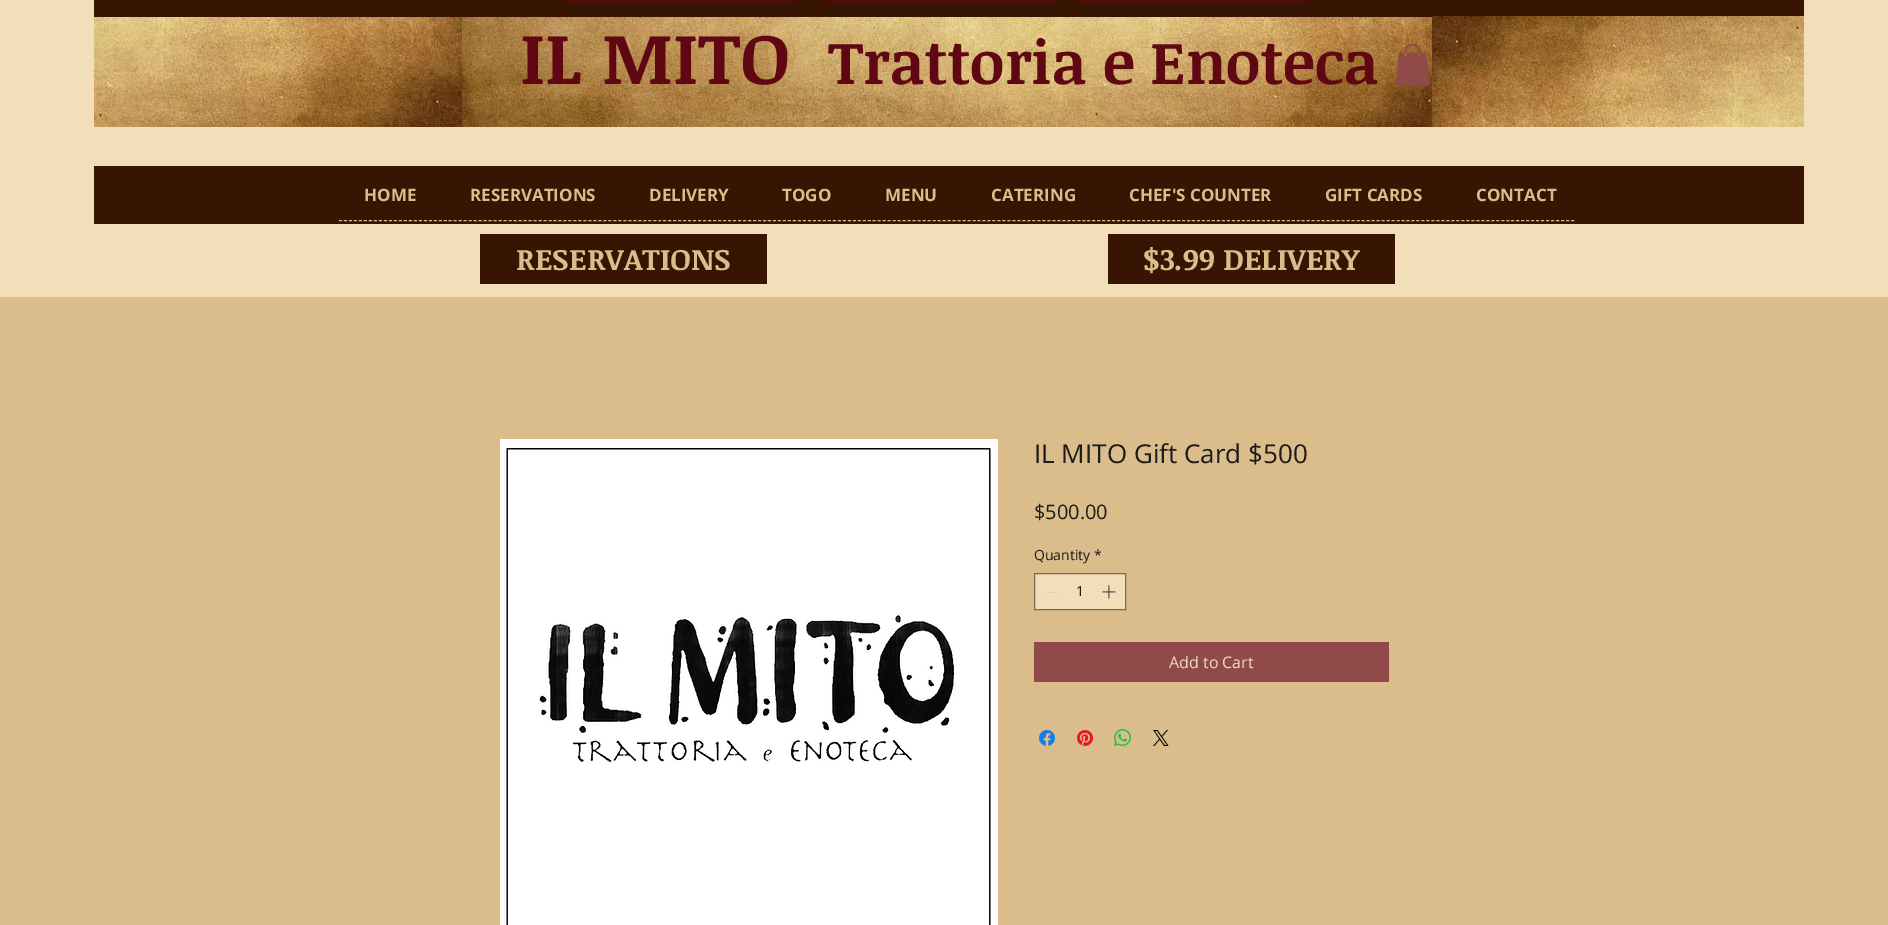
%!PS-Adobe-3.0
%%BoundingBox: 0 0 1888 925
%%LanguageLevel: 3
%%Pages: 1
%%EndComments
%%BeginProlog
/setink { dup -16 bitshift 255 div exch dup -8 bitshift 255 and 255 div exch 255 and 255 div setrgbcolor } def
/usefont { [ exch dup neg 0 0 3 -1 roll 0 0 ] selectfont } def
/rrect { 5 dict begin { /r /h /w /y /x } { exch def } forall
  x r add y moveto x w add y 2 copy h add r arct x w add y h add x 1 index r arct
  x y h add x y r arct x y 2 copy exch w add exch r arct closepath end } def
/drawimage { 5 dict begin { /h /w /y /x /name } { exch def } forall
  gsave x y translate w h scale
  w h 8 [w 0 0 h 0 0] name (r) file false 3 colorimage grestore end } def
%%EndProlog
%%BeginSetup
<< /PageSize [1888 925] >> setpagedevice
%%EndSetup
%%Page: 1 1
0 925 translate 1 -1 scale
4 setmiterlimit
16#F3DEBA setink
0 0 1888 925 rectfill
16#381402 setink
94 0 1710 17 rectfill
16#5F0712 setink
564 -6 238 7 6 rrect fill
822 -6 238 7 6 rrect fill
1075 -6 238 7 6 rrect fill
(img1.raw) 94 17 368 110 drawimage
(img2.raw) 462 17 970 110 drawimage
(img3.raw) 1432 16 372 111 drawimage
/NoticiaText-Bold 72 usefont
520 84 moveto (IL MITO) show
/NoticiaText-Bold 60 usefont
828 84 moveto (Trattoria e Enoteca) show
(img4.raw) 1396 44 34 42 drawimage
16#381402 setink
94 166 1710 58 rectfill
/OpenSans-Bold 17 usefont
16#DABD8B setink
[
    [(HOME) 364 201]
    [(RESERVATIONS) 470 201]
    [(DELIVERY) 649 201]
    [(TOGO) 782 201]
    [(MENU) 885 201]
    [(CATERING) 991 201]
    [(CHEF'S COUNTER) 1129 201]
    [(GIFT CARDS) 1325 201]
    [(CONTACT) 1476 201]
] { aload pop moveto show } forall
[3 1.99] 0 setdash
339 220.5 moveto 1575 220.5 lineto stroke
16#381402 setink
480 234 287 50 rectfill
/NoticiaText-Bold 30 usefont
16#DABD8B setink
516 270 moveto (RESERVATIONS) show
16#381402 setink
1108 234 287 50 rectfill
16#DABD8B setink
1143 270 moveto ($3.99 DELIVERY) show
0 297 1888 628 rectfill
(img5.raw) 500 439 498 486 drawimage
/OpenSans-Regular 26 usefont
16#1E1C1B setink
1034 463 moveto (IL MITO Gift Card $500) show
/OpenSans-Regular 20 usefont
1034 519 moveto ($500.00) show
/OpenSans-Regular 14 usefont
1034 560 moveto (Quantity) show
1094 560 moveto (*) show
16#F3DEBA setink
1034.5 573.5 moveto 1125.5 573.5 lineto 1125.5 609.5 lineto 1034.5 609.5 lineto closepath gsave fill grestore
16#736A5B setink
[] 0 setdash
stroke
16#DDD3C1 setink
1046 592 13 1 rectfill
16#1E1C1B setink
1076 596 moveto (1) show
(img6.raw) 1102 585 14 14 drawimage
16#904A4A setink
1034 642 355 40 rectfill
/OpenSans-Regular 16 usefont
16#F3DEBA setink
1169 668 moveto (Add to Cart) show
(img7.raw) 1039 730 16 16 drawimage
(img8.raw) 1077 730 16 16 drawimage
(img9.raw) 1114 729 17 17 drawimage
(img10.raw) 1153 730 16 16 drawimage
showpage
%%EOF
